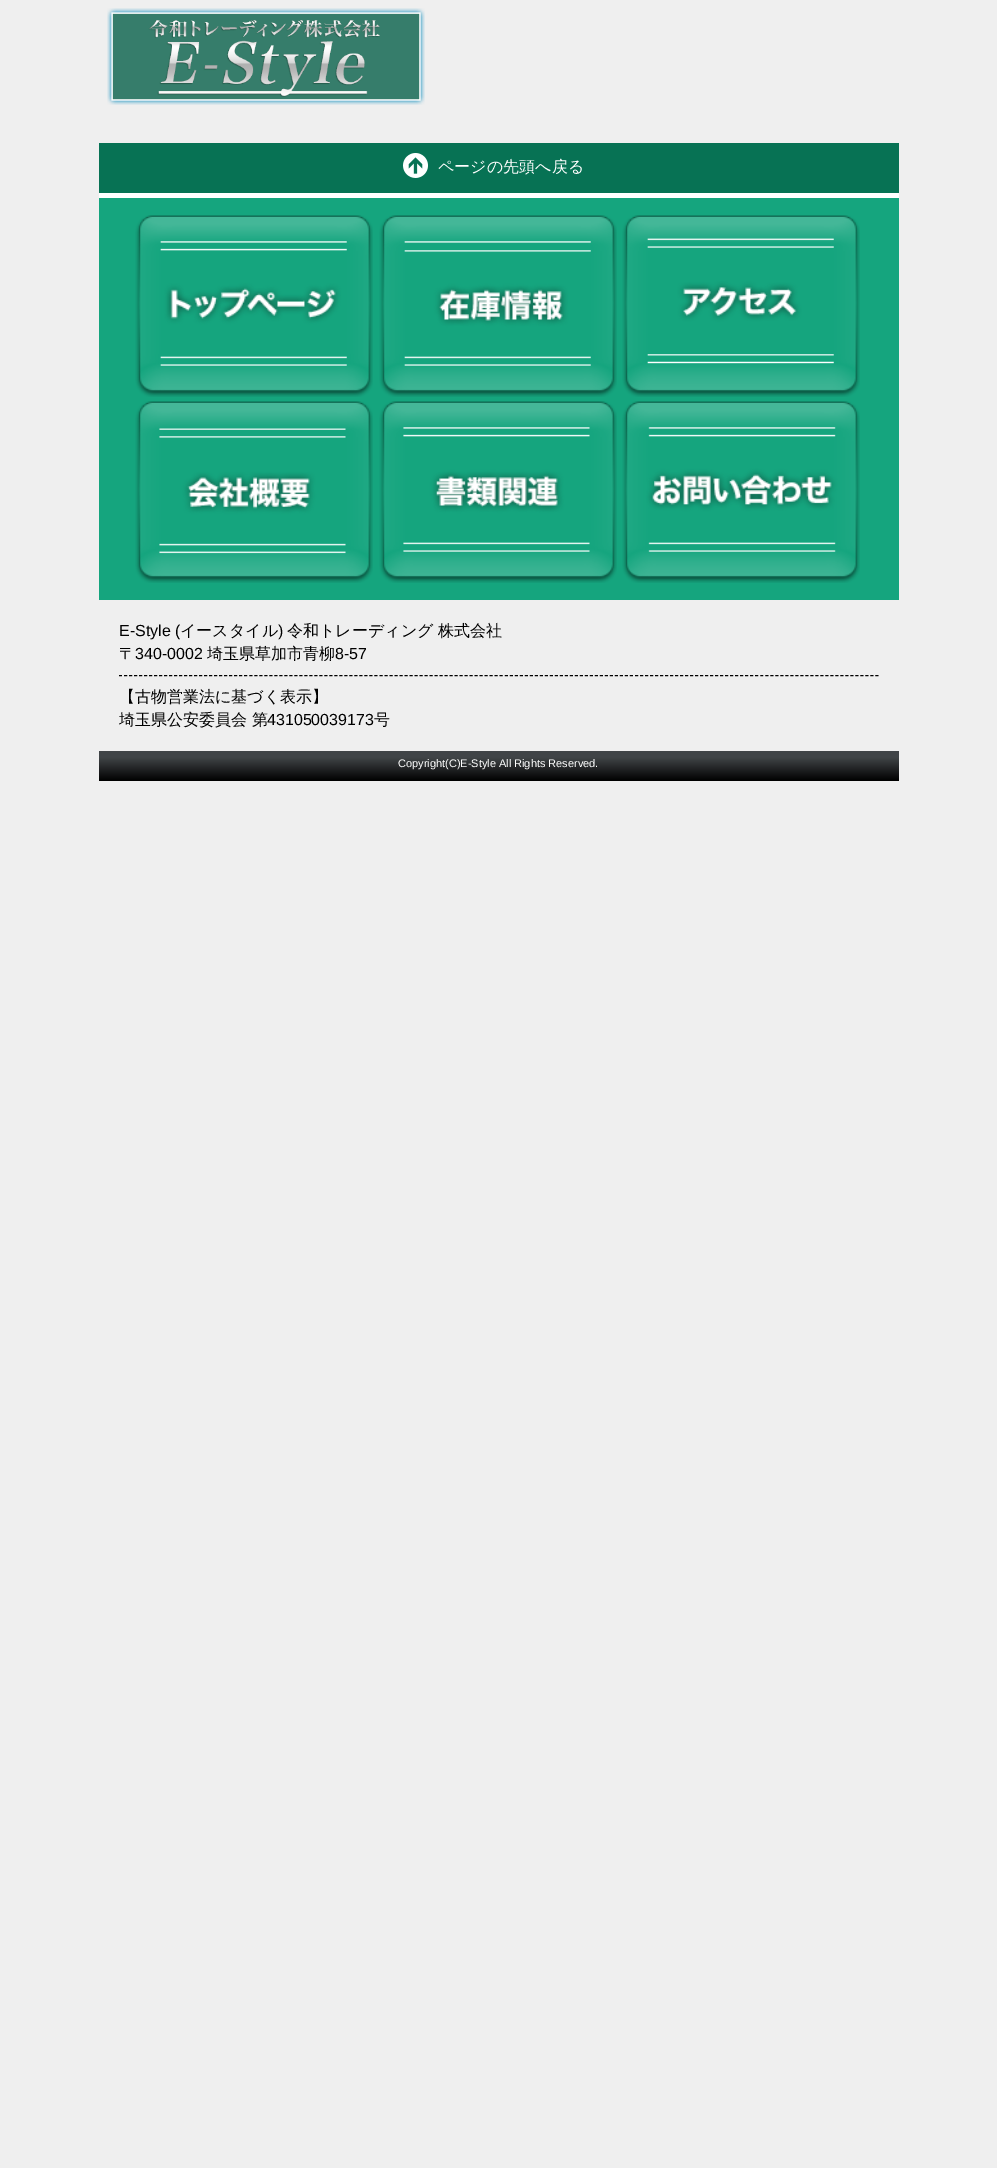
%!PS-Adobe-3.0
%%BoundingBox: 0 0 997 2168
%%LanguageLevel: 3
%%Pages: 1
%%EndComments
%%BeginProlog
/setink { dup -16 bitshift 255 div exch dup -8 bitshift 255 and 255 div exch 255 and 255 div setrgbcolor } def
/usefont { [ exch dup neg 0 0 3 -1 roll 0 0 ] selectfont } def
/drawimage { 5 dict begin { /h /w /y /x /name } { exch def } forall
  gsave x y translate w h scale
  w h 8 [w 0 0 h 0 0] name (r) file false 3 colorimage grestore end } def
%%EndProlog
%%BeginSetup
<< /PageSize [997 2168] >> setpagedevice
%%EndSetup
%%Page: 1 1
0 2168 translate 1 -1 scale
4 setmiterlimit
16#EFEFEF setink
0 0 997 2168 rectfill
(img1.raw) 107 8 318 97 drawimage
16#077254 setink
99 143 800 50 rectfill
(img2.raw) 403 153 25 25 drawimage
/WenQuanYiZenHei-Medium 16 usefont
16#FFFFFF setink
438 172 moveto (ページの先頭へ戻る) show
16#15A57E setink
99 198 800 402 rectfill
16#FFFFFF setink
99 193 800 5 rectfill
(img3.raw) 135 215 238 182 drawimage
(img4.raw) 379 215 238 182 drawimage
(img5.raw) 622 215 238 182 drawimage
(img6.raw) 135 401 238 182 drawimage
(img7.raw) 379 401 238 182 drawimage
(img8.raw) 622 401 238 182 drawimage
16#000000 setink
[3 2.01] 0 setdash
119 675.5 moveto 879 675.5 lineto stroke
/LiberationSans-Regular 16 usefont
119 636 moveto (E-Style \() show
/WenQuanYiZenHei-Medium 16 usefont
180 636 moveto (イースタイル) show
/LiberationSans-Regular 16 usefont
278 636 moveto (\)) show
/WenQuanYiZenHei-Medium 16 usefont
[
    [(令和トレーディング) 287 636]
    [(株式会社) 438 636]
    [(〒) 119 659]
] { aload pop moveto show } forall
/LiberationSans-Regular 16 usefont
135 659 moveto (340-0002) show
/WenQuanYiZenHei-Medium 16 usefont
207 659 moveto (埼玉県草加市青柳) show
/LiberationSans-Regular 16 usefont
335 659 moveto (8-57) show
/WenQuanYiZenHei-Medium 16 usefont
119 702 moveto (【古物営業法に基づく表示】) show
119 725 moveto (埼玉県公安委員会 第) show
/LiberationSans-Regular 16 usefont
267 725 moveto (431050039173) show
/WenQuanYiZenHei-Medium 16 usefont
374 725 moveto (号) show
gsave 99 751 moveto 899 751 lineto 899 781 lineto 99 781 lineto closepath clip newpath
<< /ShadingType 2 /ColorSpace /DeviceRGB /Coords [499 751 499 781] /Extend [true true] /Function << /FunctionType 3 /Domain [0 1] /Functions [<< /FunctionType 2 /Domain [0 1] /C0 [0.251 0.267 0.278] /C1 [0.251 0.267 0.278] /N 1 >> << /FunctionType 2 /Domain [0 1] /C0 [0.251 0.267 0.278] /C1 [0 0 0] /N 1 >>] /Bounds [0.21] /Encode [0 1 0 1] >> >> shfill grestore
/LiberationSans-Regular 11 usefont
16#FFFFFF setink
398 767 moveto (Copyright\(C\)E-Style All Rights Reserved.) show
showpage
%%EOF
